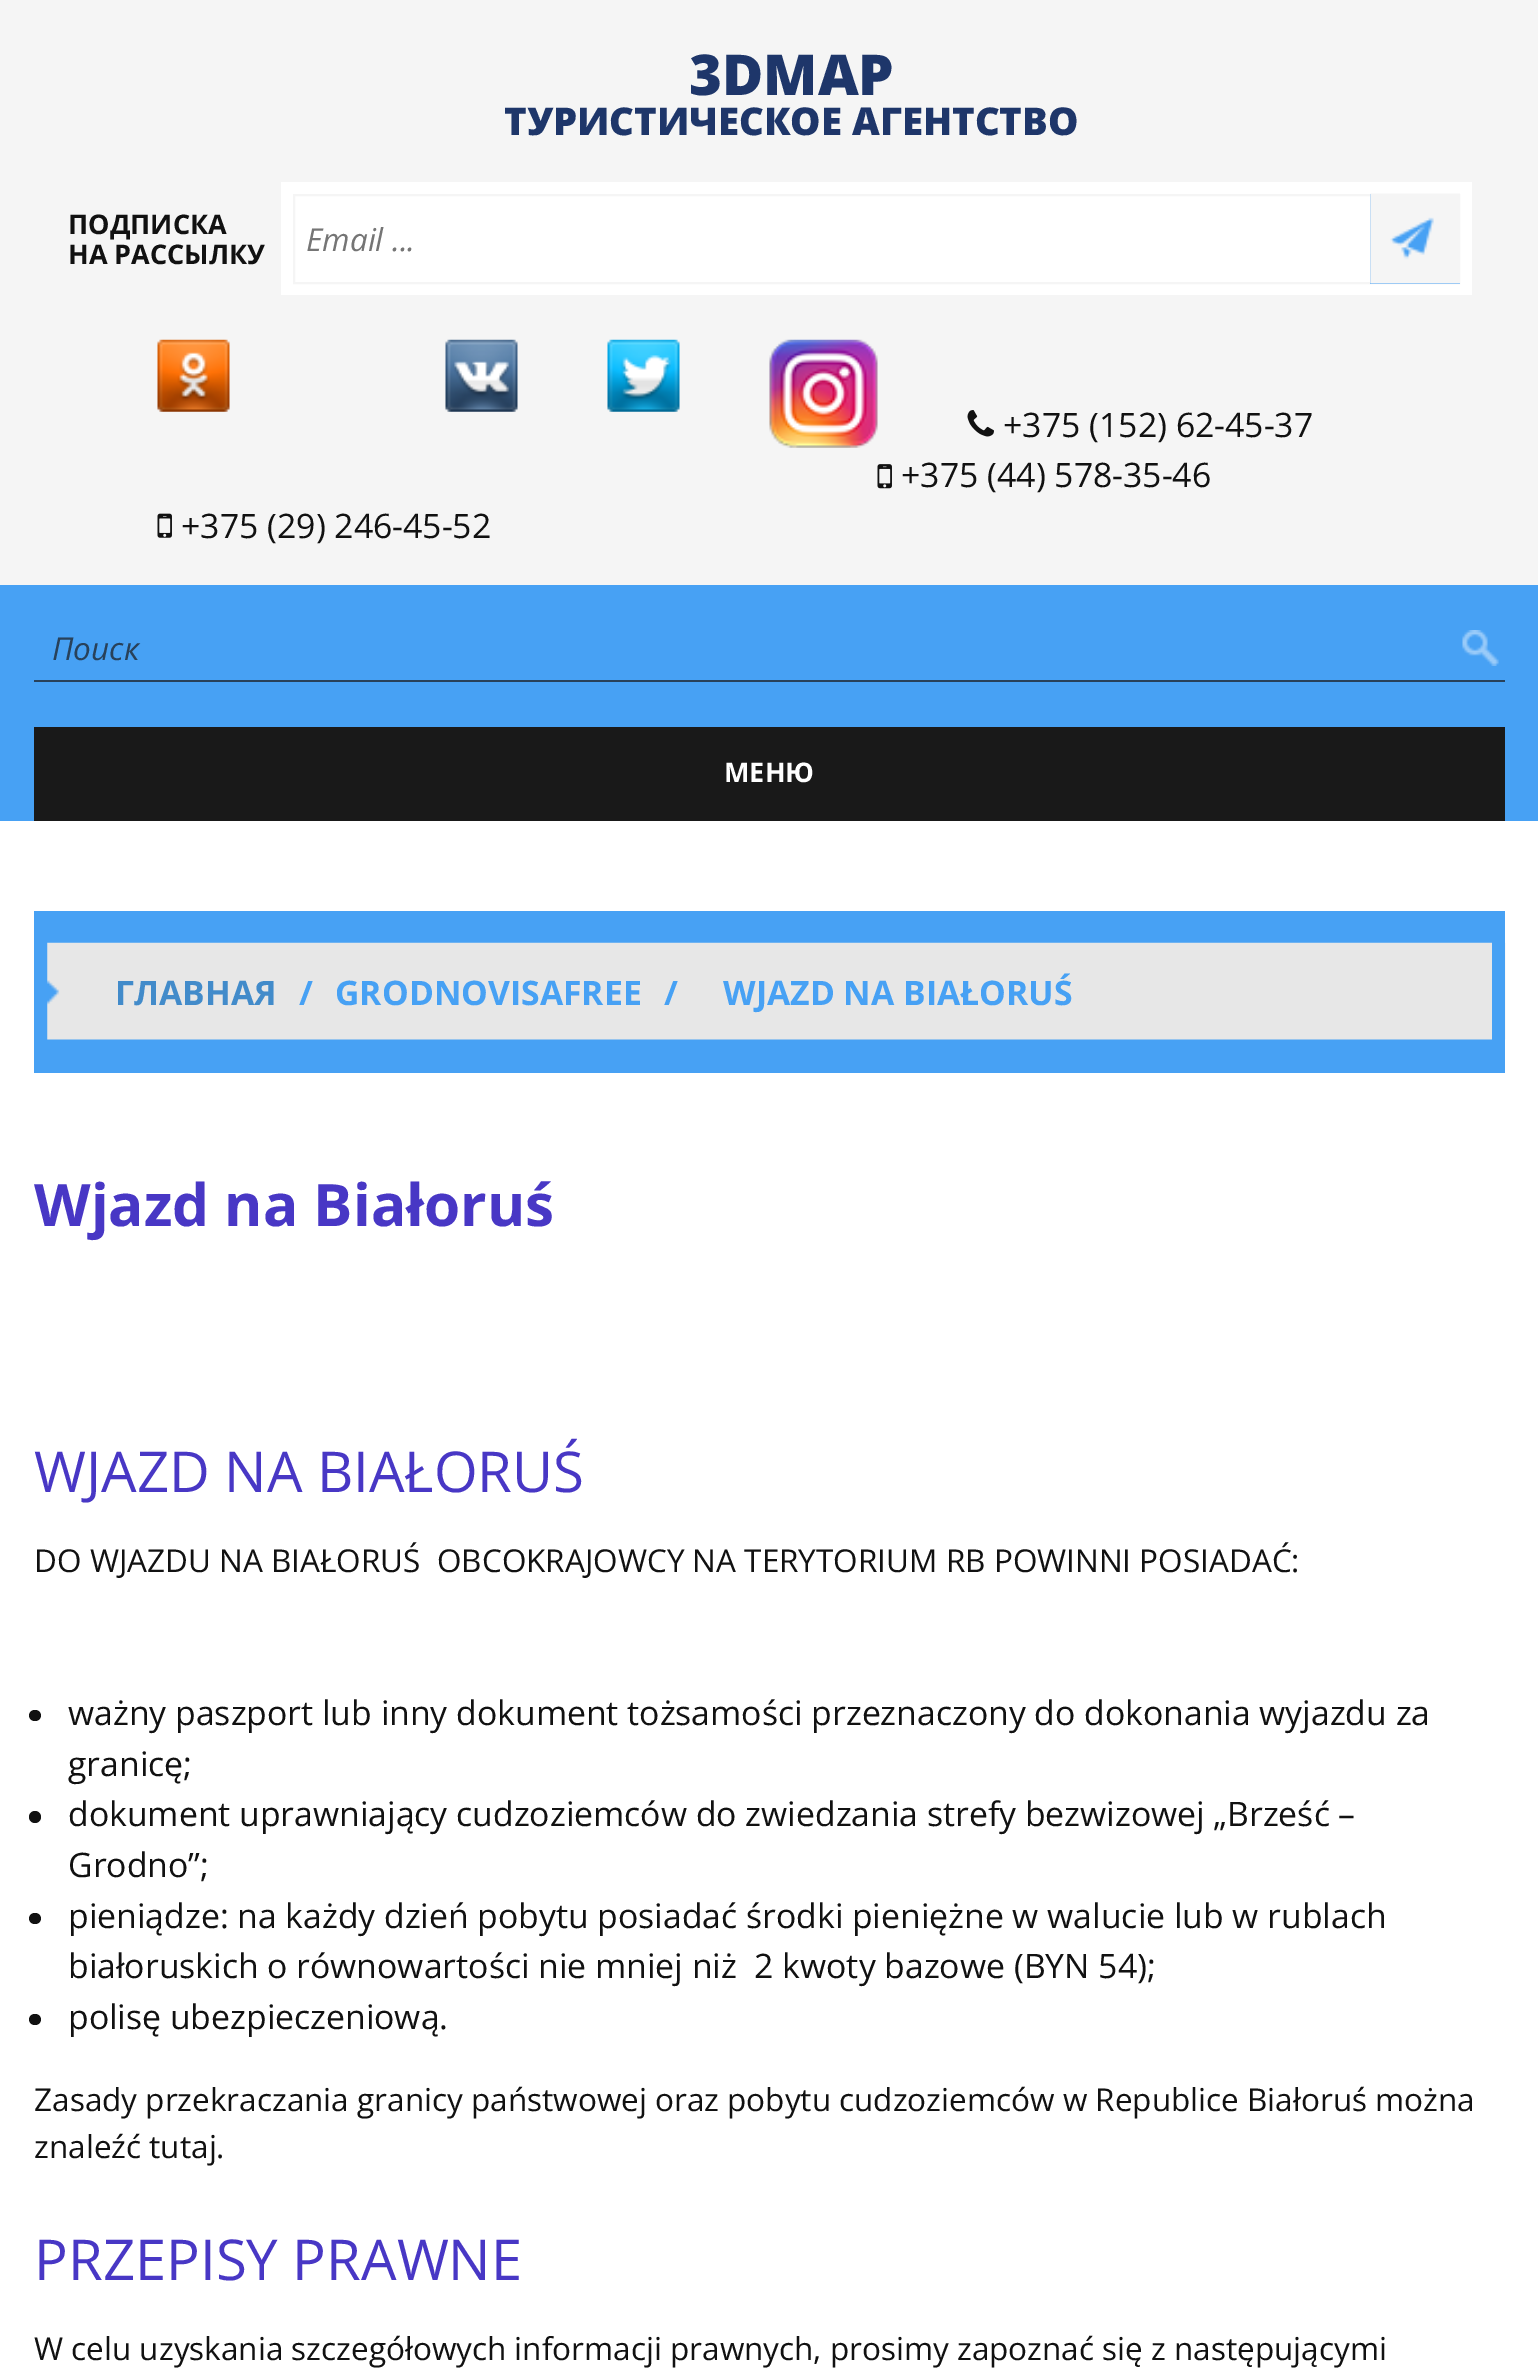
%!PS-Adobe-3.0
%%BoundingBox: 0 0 1538 2370
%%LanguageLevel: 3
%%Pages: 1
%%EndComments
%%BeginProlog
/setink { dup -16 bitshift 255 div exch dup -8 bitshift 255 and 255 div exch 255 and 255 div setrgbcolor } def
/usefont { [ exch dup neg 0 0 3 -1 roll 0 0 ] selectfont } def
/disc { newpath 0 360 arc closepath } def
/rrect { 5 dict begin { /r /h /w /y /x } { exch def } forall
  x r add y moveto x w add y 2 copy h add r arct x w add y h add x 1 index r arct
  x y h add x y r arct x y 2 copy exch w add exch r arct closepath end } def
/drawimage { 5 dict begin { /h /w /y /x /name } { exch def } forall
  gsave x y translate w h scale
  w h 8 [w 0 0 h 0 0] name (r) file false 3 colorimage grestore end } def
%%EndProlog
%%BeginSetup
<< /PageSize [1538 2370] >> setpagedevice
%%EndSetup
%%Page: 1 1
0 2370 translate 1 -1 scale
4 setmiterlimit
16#FFFFFF setink
0 0 1538 2370 rectfill
16#F5F5F5 setink
0 0 1538 585 rectfill
/OpenSans-ExtraBold 56.25 usefont
16#1E366A setink
689 95 moveto (3DMAP) show
/OpenSans-ExtraBold 38.25 usefont
504 135 moveto (ТУРИСТИЧЕСКОЕ АГЕНТСТВО) show
/OpenSans-Bold 27 usefont
16#111111 setink
68 234 moveto (ПОДПИСКА) show
68 264 moveto (НА РАССЫЛКУ) show
16#FFFFFF setink
281 182 1191 113 rectfill
16#F5F5F5 setink
2 setlinewidth
294 195 1165 88 rectstroke
/OpenSans-Italic 31.5 usefont
16#757575 setink
306 251 moveto (Email ...) show
16#47A1F4 setink
1370 194 90 90 rectfill
(img1.raw) 1370 193 90 91 drawimage
(img2.raw) 157 339 73 73 drawimage
(img3.raw) 445 339 73 73 drawimage
(img4.raw) 607 339 73 73 drawimage
(img5.raw) 769 339 109 109 drawimage
(img6.raw) 967 410 27 27 drawimage
/OpenSans-Regular 33.75 usefont
16#111111 setink
1003 437 moveto (+375 \(152\) 62-45-37) show
(img7.raw) 877 464 15 25 drawimage
901 487 moveto (+375 \(44\) 578-35-46) show
(img8.raw) 157 513 15 25 drawimage
181 538 moveto (+375 \(29\) 246-45-52) show
16#47A1F4 setink
0 585 1538 236 rectfill
16#28415A setink
34 680 1471 2 rectfill
/OpenSans-Italic 31.5 usefont
52 660 moveto (Поиск) show
(img9.raw) 1462 630 37 36 drawimage
16#191919 setink
34 727 1471 94 rectfill
/OpenSans-Bold 27 usefont
16#FFFFFF setink
724 782 moveto (МЕНЮ) show
16#47A1F4 setink
34 911 1458 162 rectfill
(img10.raw) 47 942 1459 98 drawimage
1492 911 13 162 rectfill
/OpenSans-Bold 33.75 usefont
16#428BCA setink
115 1005 moveto (ГЛАВНАЯ) show
16#47A1F4 setink
[
    [(/) 299 1005]
    [(GRODNOVISAFREE) 335 1005]
    [(/) 664 1005]
    [(WJAZD NA BIAŁORUŚ) 723 1005]
] { aload pop moveto show } forall
/OpenSans-Bold 58.5 usefont
16#4837C5 setink
34 1226 moveto (Wjazd na Białoruś) show
/OpenSans-Regular 56.25 usefont
34 1492 moveto (WJAZD NA BIAŁORUŚ) show
/OpenSans-Regular 31.5 usefont
16#111111 setink
34 1572 moveto (DO WJAZDU NA BIAŁORUŚ  OBCOKRAJOWCY NA TERYTORIUM RB POWINNI POSIADAĆ:) show
29 1710 12 11 5.5 rrect fill
/OpenSans-Regular 33.75 usefont
68 1725 moveto (ważny paszport lub inny dokument tożsamości przeznaczony do dokonania wyjazdu za) show
68 1776 moveto (granicę;) show
35 1817 6 disc fill
68 1826 moveto (dokument uprawniający cudzoziemców do zwiedzania strefy bezwizowej „Brześć –) show
68 1877 moveto (Grodno”;) show
29 1913 12 11 5.5 rrect fill
68 1928 moveto (pieniądze: na każdy dzień pobytu posiadać środki pieniężne w walucie lub w rublach) show
68 1978 moveto (białoruskich o równowartości nie mniej niż  2 kwoty bazowe \(BYN 54\);) show
29 2014 12 11 5.5 rrect fill
68 2029 moveto (polisę ubezpieczeniową.) show
/OpenSans-Regular 31.5 usefont
34 2111 moveto (Zasady przekraczania granicy państwowej oraz pobytu cudzoziemców w Republice Białoruś można) show
34 2158 moveto (znaleźć tutaj.) show
/OpenSans-Regular 56.25 usefont
16#4837C5 setink
34 2280 moveto (PRZEPISY PRAWNE) show
/OpenSans-Regular 31.5 usefont
16#111111 setink
34 2360 moveto (W celu uzyskania szczegółowych informacji prawnych, prosimy zapoznać się z następującymi) show
showpage
%%EOF
